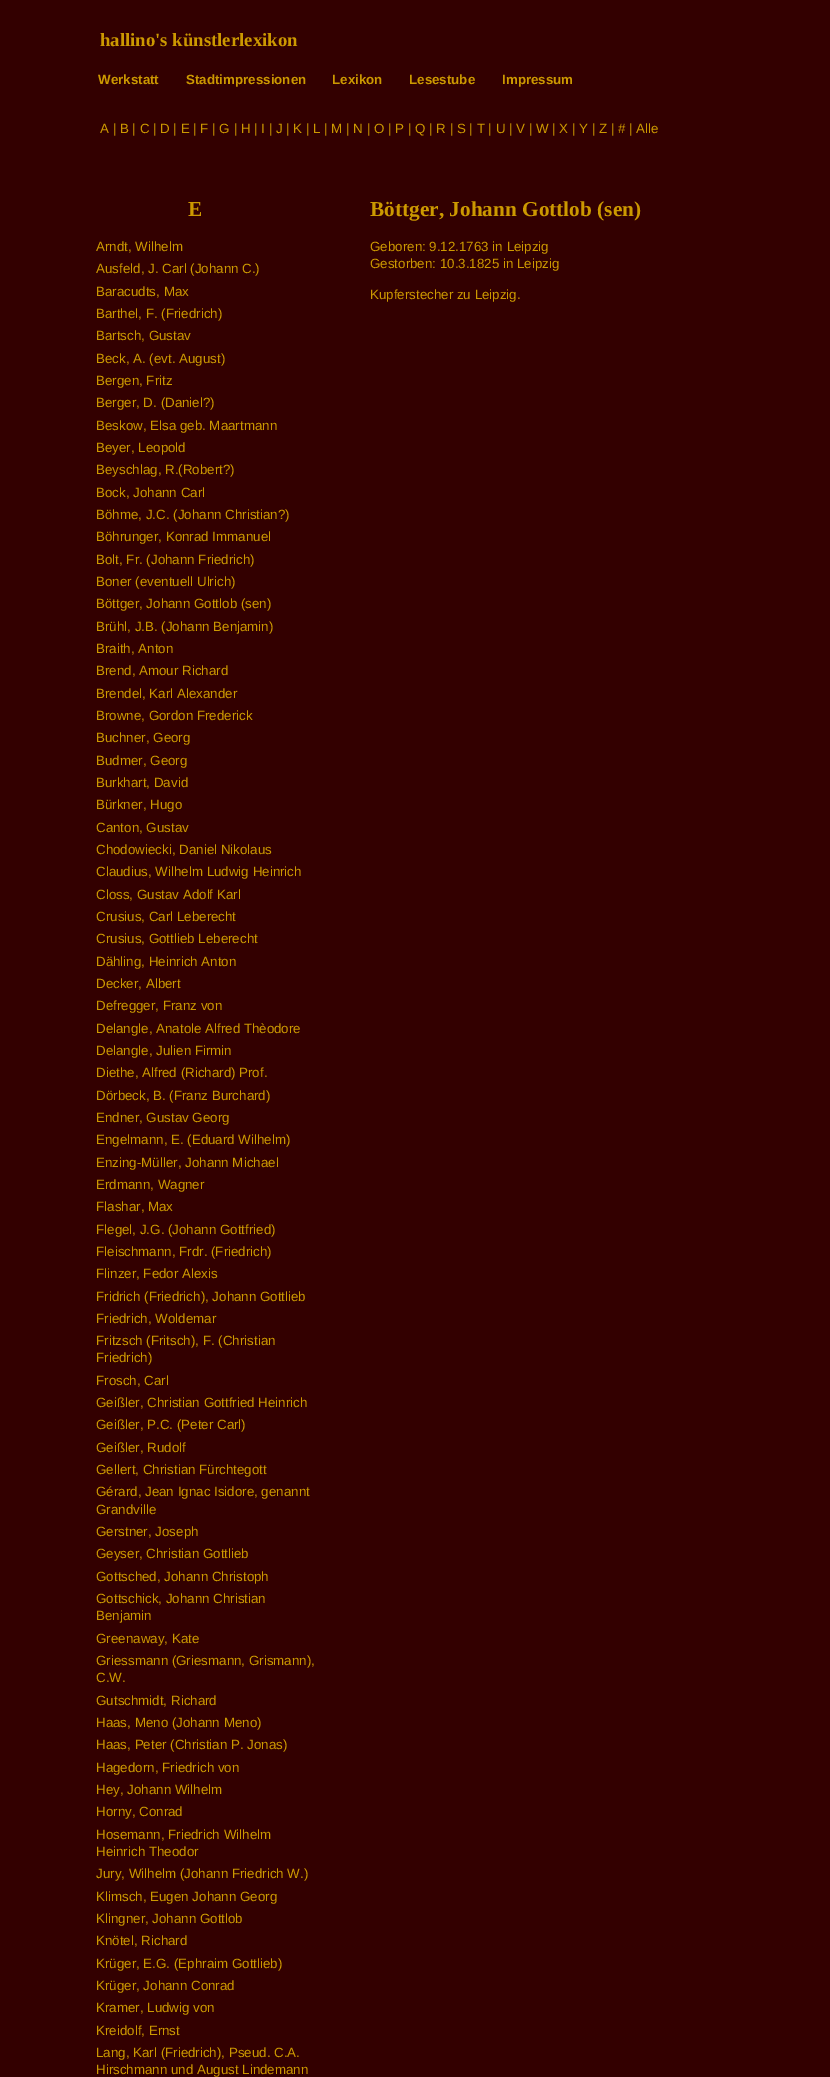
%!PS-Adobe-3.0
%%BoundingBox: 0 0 830 2077
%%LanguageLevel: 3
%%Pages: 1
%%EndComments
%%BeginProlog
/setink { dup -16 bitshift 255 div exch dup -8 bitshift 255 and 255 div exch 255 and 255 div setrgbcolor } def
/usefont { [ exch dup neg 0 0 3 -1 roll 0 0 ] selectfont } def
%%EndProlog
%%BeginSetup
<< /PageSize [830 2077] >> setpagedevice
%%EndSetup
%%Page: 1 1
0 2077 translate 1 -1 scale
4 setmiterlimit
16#330000 setink
0 0 830 2077 rectfill
/LiberationSerif-Bold 18.75 usefont
16#CC9900 setink
100 46 moveto (hallino's künstlerlexikon) show
/LiberationSans-Bold 13.35 usefont
[
    [(Werkstatt) 98 84]
    [(Stadtimpressionen) 186 84]
    [(Lexikon) 332 84]
    [(Lesestube) 409 84]
    [(Impressum) 502 84]
] { aload pop moveto show } forall
/LiberationSans-Regular 13.35 usefont
100 133 moveto (A | B | C | D | E | F | G | H | I | J | K | L | M | N | O | P | Q | R | S | T | U | V | W | X | Y | Z | # | Alle) show
/LiberationSerif-Bold 21.3 usefont
188 216 moveto (E) show
/LiberationSans-Regular 13.35 usefont
[
    [(Arndt, Wilhelm) 96 251]
    [(Ausfeld, J. Carl \(Johann C.\)) 96 273]
    [(Baracudts, Max) 96 296]
    [(Barthel, F. \(Friedrich\)) 96 318]
    [(Bartsch, Gustav) 96 340]
    [(Beck, A. \(evt. August\)) 96 363]
    [(Bergen, Fritz) 96 385]
    [(Berger, D. \(Daniel?\)) 96 407]
    [(Beskow, Elsa geb. Maartmann) 96 430]
    [(Beyer, Leopold) 96 452]
    [(Beyschlag, R.\(Robert?\)) 96 474]
    [(Bock, Johann Carl) 96 497]
    [(Böhme, J.C. \(Johann Christian?\)) 96 519]
    [(Böhrunger, Konrad Immanuel) 96 541]
    [(Bolt, Fr. \(Johann Friedrich\)) 96 564]
    [(Boner \(eventuell Ulrich\)) 96 586]
    [(Böttger, Johann Gottlob \(sen\)) 96 608]
    [(Brühl, J.B. \(Johann Benjamin\)) 96 631]
    [(Braith, Anton) 96 653]
    [(Brend, Amour Richard) 96 675]
    [(Brendel, Karl Alexander) 96 698]
    [(Browne, Gordon Frederick) 96 720]
    [(Buchner, Georg) 96 742]
    [(Budmer, Georg) 96 765]
    [(Burkhart, David) 96 787]
    [(Bürkner, Hugo) 96 809]
    [(Canton, Gustav) 96 832]
    [(Chodowiecki, Daniel Nikolaus) 96 854]
    [(Claudius, Wilhelm Ludwig Heinrich) 96 876]
    [(Closs, Gustav Adolf Karl) 96 899]
    [(Crusius, Carl Leberecht) 96 921]
    [(Crusius, Gottlieb Leberecht) 96 943]
    [(Dähling, Heinrich Anton) 96 966]
    [(Decker, Albert) 96 988]
    [(Defregger, Franz von) 96 1010]
    [(Delangle, Anatole Alfred Thèodore) 96 1033]
    [(Delangle, Julien Firmin) 96 1055]
    [(Diethe, Alfred \(Richard\) Prof.) 96 1077]
    [(Dörbeck, B. \(Franz Burchard\)) 96 1100]
    [(Endner, Gustav Georg) 96 1122]
    [(Engelmann, E. \(Eduard Wilhelm\)) 96 1144]
    [(Enzing-Müller, Johann Michael) 96 1167]
    [(Erdmann, Wagner) 96 1189]
    [(Flashar, Max) 96 1211]
    [(Flegel, J.G. \(Johann Gottfried\)) 96 1234]
    [(Fleischmann, Frdr. \(Friedrich\)) 96 1256]
    [(Flinzer, Fedor Alexis) 96 1278]
    [(Fridrich \(Friedrich\), Johann Gottlieb) 96 1301]
    [(Friedrich, Woldemar) 96 1323]
    [(Fritzsch \(Fritsch\), F. \(Christian) 96 1345]
    [(Friedrich\)) 96 1362]
    [(Frosch, Carl) 96 1385]
    [(Geißler, Christian Gottfried Heinrich) 96 1407]
    [(Geißler, P.C. \(Peter Carl\)) 96 1429]
    [(Geißler, Rudolf) 96 1452]
    [(Gellert, Christian Fürchtegott) 96 1474]
    [(Gérard, Jean Ignac Isidore, genannt) 96 1496]
    [(Grandville) 96 1514]
    [(Gerstner, Joseph) 96 1536]
    [(Geyser, Christian Gottlieb) 96 1558]
    [(Gottsched, Johann Christoph) 96 1581]
    [(Gottschick, Johann Christian) 96 1603]
    [(Benjamin) 96 1620]
    [(Greenaway, Kate) 96 1643]
    [(Griessmann \(Griesmann, Grismann\),) 96 1665]
    [(C.W.) 96 1682]
    [(Gutschmidt, Richard) 96 1705]
    [(Haas, Meno \(Johann Meno\)) 96 1727]
    [(Haas, Peter \(Christian P. Jonas\)) 96 1749]
    [(Hagedorn, Friedrich von) 96 1772]
    [(Hey, Johann Wilhelm) 96 1794]
    [(Horny, Conrad) 96 1816]
    [(Hosemann, Friedrich Wilhelm) 96 1839]
    [(Heinrich Theodor) 96 1856]
    [(Jury, Wilhelm \(Johann Friedrich W.\)) 96 1878]
    [(Klimsch, Eugen Johann Georg) 96 1901]
    [(Klingner, Johann Gottlob) 96 1923]
    [(Knötel, Richard) 96 1945]
    [(Krüger, E.G. \(Ephraim Gottlieb\)) 96 1968]
    [(Krüger, Johann Conrad) 96 1990]
    [(Kramer, Ludwig von) 96 2012]
    [(Kreidolf, Ernst) 96 2035]
    [(Lang, Karl \(Friedrich\), Pseud. C.A.) 96 2057]
    [(Hirschmann und August Lindemann) 96 2074]
] { aload pop moveto show } forall
/LiberationSerif-Bold 21.3 usefont
370 216 moveto (Böttger, Johann Gottlob \(sen\)) show
/LiberationSans-Regular 13.35 usefont
[
    [(Geboren: 9.12.1763 in Leipzig) 370 251]
    [(Gestorben: 10.3.1825 in Leipzig) 370 268]
    [(Kupferstecher zu Leipzig.) 370 299]
] { aload pop moveto show } forall
showpage
%%EOF
